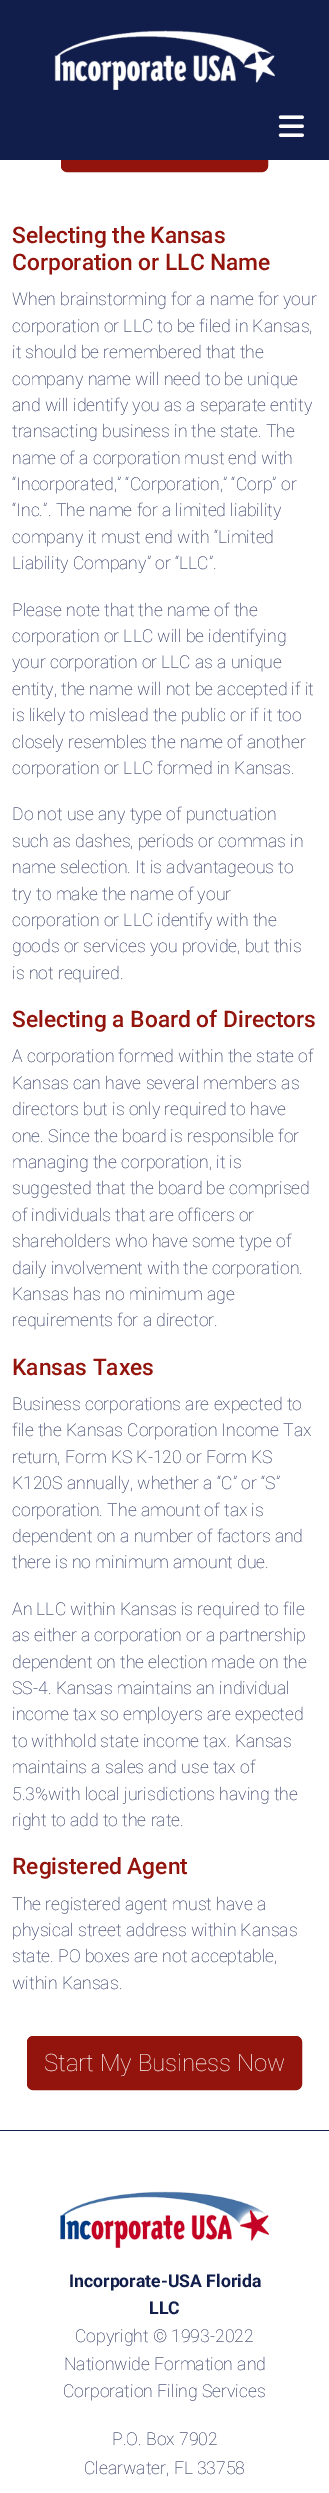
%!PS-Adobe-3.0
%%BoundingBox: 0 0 329 2493
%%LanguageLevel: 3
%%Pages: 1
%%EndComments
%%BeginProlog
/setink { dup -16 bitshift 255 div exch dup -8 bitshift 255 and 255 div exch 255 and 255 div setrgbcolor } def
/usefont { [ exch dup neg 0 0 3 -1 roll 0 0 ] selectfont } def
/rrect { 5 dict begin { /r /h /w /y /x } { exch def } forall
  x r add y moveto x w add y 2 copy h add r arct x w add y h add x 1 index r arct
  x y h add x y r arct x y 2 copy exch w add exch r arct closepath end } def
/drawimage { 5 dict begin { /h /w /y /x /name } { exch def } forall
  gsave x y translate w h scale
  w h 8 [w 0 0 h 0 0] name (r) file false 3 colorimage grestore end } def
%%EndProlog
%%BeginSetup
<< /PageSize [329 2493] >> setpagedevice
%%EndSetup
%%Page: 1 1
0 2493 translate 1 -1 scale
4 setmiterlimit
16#FFFFFF setink
0 0 329 2493 rectfill
16#92140C setink
61.5 118.5 206 53 5.5 rrect gsave fill grestore
stroke
16#111D4B setink
0 0 329 160 rectfill
(img1.raw) 54 30 221 60 drawimage
(img2.raw) 278 115 26 22 drawimage
/Roboto-Medium 22.75 usefont
16#92140C setink
12 243 moveto (Selecting the Kansas) show
12 270 moveto (Corporation or LLC Name) show
/Roboto-Thin 17.6 usefont
16#111D4B setink
[
    [(When brainstorming for a name for your) 12 305]
    [(corporation or LLC to be filed in Kansas,) 12 332]
    [(it should be remembered that the) 12 358]
    [(company name will need to be unique) 12 385]
    [(and will identify you as a separate entity) 12 411]
    [(transacting business in the state. The) 12 437]
    [(name of a corporation must end with) 12 464]
    [(“Incorporated,” “Corporation,” “Corp” or) 12 490]
    [(“Inc.”. The name for a limited liability) 12 516]
    [(company it must end with “Limited) 12 543]
    [(Liability Company” or “LLC”.) 12 569]
    [(Please note that the name of the) 12 616]
    [(corporation or LLC will be identifying) 12 642]
    [(your corporation or LLC as a unique) 12 668]
    [(entity, the name will not be accepted if it) 12 695]
    [(is likely to mislead the public or if it too) 12 721]
    [(closely resembles the name of another) 12 748]
    [(corporation or LLC formed in Kansas.) 12 774]
    [(Do not use any type of punctuation) 12 820]
    [(such as dashes, periods or commas in) 12 847]
    [(name selection. It is advantageous to) 12 873]
    [(try to make the name of your) 12 900]
    [(corporation or LLC identify with the) 12 926]
    [(goods or services you provide, but this) 12 952]
    [(is not required.) 12 979]
] { aload pop moveto show } forall
/Roboto-Medium 22.75 usefont
16#92140C setink
12 1027 moveto (Selecting a Board of Directors) show
/Roboto-Thin 17.6 usefont
16#111D4B setink
[
    [(A corporation formed within the state of) 12 1062]
    [(Kansas can have several members as) 12 1089]
    [(directors but is only required to have) 12 1115]
    [(one. Since the board is responsible for) 12 1142]
    [(managing the corporation, it is) 12 1168]
    [(suggested that the board be comprised) 12 1194]
    [(of individuals that are officers or) 12 1221]
    [(shareholders who have some type of) 12 1247]
    [(daily involvement with the corporation.) 12 1274]
    [(Kansas has no minimum age) 12 1300]
    [(requirements for a director.) 12 1326]
] { aload pop moveto show } forall
/Roboto-Medium 22.75 usefont
16#92140C setink
12 1375 moveto (Kansas Taxes) show
/Roboto-Thin 17.6 usefont
16#111D4B setink
[
    [(Business corporations are expected to) 12 1410]
    [(file the Kansas Corporation Income Tax) 12 1436]
    [(return, Form KS K-120 or Form KS) 12 1463]
    [(K120S annually, whether a “C” or “S”) 12 1489]
    [(corporation. The amount of tax is) 12 1516]
    [(dependent on a number of factors and) 12 1542]
    [(there is no minimum amount due.) 12 1568]
    [(An LLC within Kansas is required to file) 12 1615]
    [(as either a corporation or a partnership) 12 1641]
    [(dependent on the election made on the) 12 1668]
    [(SS-4. Kansas maintains an individual) 12 1694]
    [(income tax so employers are expected) 12 1720]
    [(to withhold state income tax. Kansas) 12 1747]
    [(maintains a sales and use tax of) 12 1773]
    [(5.3%with local jurisdictions having the) 12 1800]
    [(right to add to the rate.) 12 1826]
] { aload pop moveto show } forall
/Roboto-Medium 22.75 usefont
16#92140C setink
12 1874 moveto (Registered Agent) show
/Roboto-Thin 17.6 usefont
16#111D4B setink
[
    [(The registered agent must have a) 12 1910]
    [(physical street address within Kansas) 12 1936]
    [(state. PO boxes are not acceptable,) 12 1962]
    [(within Kansas.) 12 1989]
] { aload pop moveto show } forall
16#92140C setink
27.5 2036.5 274 53 5.5 rrect gsave fill grestore
stroke
/Roboto-Thin 24 usefont
16#FFFFFF setink
44 2071 moveto (Start My Business Now) show
16#111D4B setink
0 2130 329 1 rectfill
(img3.raw) 60 2191 209 57 drawimage
/Roboto-Bold 17.6 usefont
69 2287 moveto (Incorporate-USA Florida) show
149 2314 moveto (LLC) show
/Roboto-Thin 17.6 usefont
[
    [(Copyright © 1993-2022) 75 2342]
    [(Nationwide Formation and) 64 2370]
    [(Corporation Filing Services) 63 2397]
    [(P.O. Box 7902) 112 2445]
    [(Clearwater, FL 33758) 84 2474]
] { aload pop moveto show } forall
showpage
%%EOF
